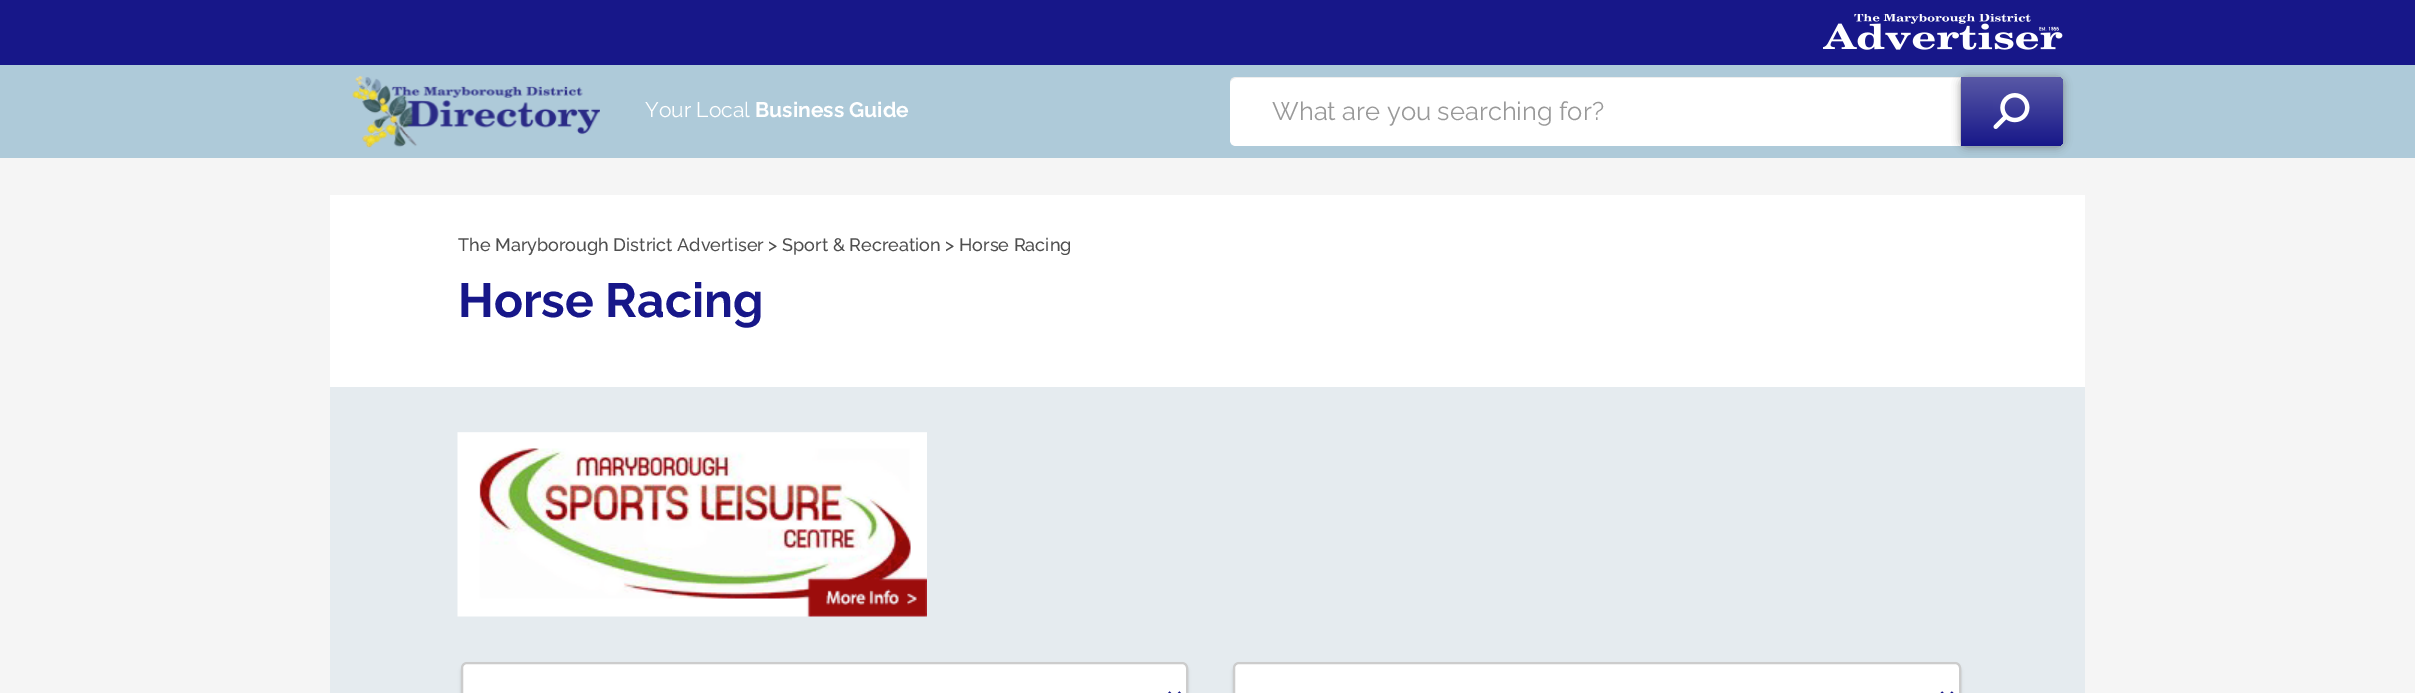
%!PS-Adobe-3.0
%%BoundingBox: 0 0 2415 693
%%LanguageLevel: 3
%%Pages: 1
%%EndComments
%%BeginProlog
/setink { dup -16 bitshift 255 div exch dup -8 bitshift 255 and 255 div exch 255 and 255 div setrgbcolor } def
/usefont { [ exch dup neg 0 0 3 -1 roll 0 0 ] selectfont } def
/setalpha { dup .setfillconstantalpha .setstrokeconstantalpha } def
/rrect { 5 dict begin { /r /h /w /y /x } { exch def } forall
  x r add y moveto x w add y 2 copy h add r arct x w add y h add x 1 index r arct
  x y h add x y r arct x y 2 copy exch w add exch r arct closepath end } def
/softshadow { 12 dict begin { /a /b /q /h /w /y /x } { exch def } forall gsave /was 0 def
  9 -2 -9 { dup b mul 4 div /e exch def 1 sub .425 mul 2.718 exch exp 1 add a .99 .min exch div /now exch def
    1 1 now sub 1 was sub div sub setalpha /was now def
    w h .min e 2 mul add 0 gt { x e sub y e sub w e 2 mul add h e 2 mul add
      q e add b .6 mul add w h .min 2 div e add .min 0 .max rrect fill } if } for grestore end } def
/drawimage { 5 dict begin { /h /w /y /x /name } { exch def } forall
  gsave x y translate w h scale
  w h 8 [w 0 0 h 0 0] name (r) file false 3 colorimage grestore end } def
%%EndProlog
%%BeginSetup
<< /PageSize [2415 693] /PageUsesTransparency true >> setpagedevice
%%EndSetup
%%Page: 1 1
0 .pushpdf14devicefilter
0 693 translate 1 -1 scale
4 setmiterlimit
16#171789 setink
0 0 2415 693 rectfill
(img1.raw) 1823 14 240 36 drawimage
16#AECAD9 setink
0 65 2415 93 rectfill
(img2.raw) 352 76 248 72 drawimage
/Raleway-Regular 21 usefont
16#FFFFFF setink
645 117 moveto (Your Local) show
/Raleway-Bold 21 usefont
755 117 moveto (Business Guide) show
1236 77 moveto 1961 77 lineto 1961 146 lineto 1236 146 lineto 1232.5 146 1230 143.5 1230 140 curveto 1230 83 lineto 1230 79.5 1232.5 77 1236 77 curveto closepath fill
0.07 setalpha
16#000000 setink
1236 78 moveto 1960 78 lineto 1960 146 lineto 1961 146 lineto 1961 77 lineto 1236 77 lineto 1232 77 1230 80 1230 84 curveto 1230 81 1233 78 1236 78 curveto closepath fill
/Raleway-Regular 25.5 usefont
1 setalpha
16#999999 setink
1272 120 moveto (What are you searching for?) show
16#F5F5F5 setink
0 158 2415 535 rectfill
16#666666 setink
1961 78 102 69 6 4.5 0.7 softshadow
gsave 1961 77 moveto 2057 77 lineto 2060.5 77 2063 79.5 2063 83 curveto 2063 140 lineto 2063 143.5 2060.5 146 2057 146 curveto 1961 146 lineto closepath clip newpath
<< /ShadingType 2 /ColorSpace /DeviceRGB /Coords [2012 77 2012 146] /Extend [true true] /Function << /FunctionType 2 /Domain [0 1] /C0 [0.349 0.349 0.651] /C1 [0.09 0.09 0.537] /N 1 >> >> shfill grestore
(img3.raw) 1993 93 37 36 drawimage
16#FFFFFF setink
330 195 1755 192 rectfill
/Raleway-Medium 18 usefont
16#4E4E4E setink
458 251 moveto (The Maryborough District Advertiser > Sport & Recreation > Horse Racing) show
/Raleway-Bold 48 usefont
16#171789 setink
458 317 moveto (Horse Racing) show
16#E5EBEF setink
330 387 1755 306 rectfill
(img4.raw) 457 432 470 185 drawimage
16#3A3B3A setink
461 665 727 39 6 1.5 0.2 softshadow
16#FFFFFF setink
462 663 725 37 5 rrect gsave fill grestore
16#CCCCCC setink
2 setlinewidth
stroke
16#171789 setink
3 setlinewidth
1168.5 692.5 moveto 1174.5 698.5 lineto 1180.5 692.5 lineto stroke
16#3A3B3A setink
1233 665 728 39 6 1.5 0.2 softshadow
16#FFFFFF setink
1234 663 726 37 5 rrect gsave fill grestore
16#CCCCCC setink
2 setlinewidth
stroke
16#171789 setink
3 setlinewidth
1941 692.5 moveto 1947 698.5 lineto 1953 692.5 lineto stroke
.poppdf14devicefilter showpage
%%EOF
